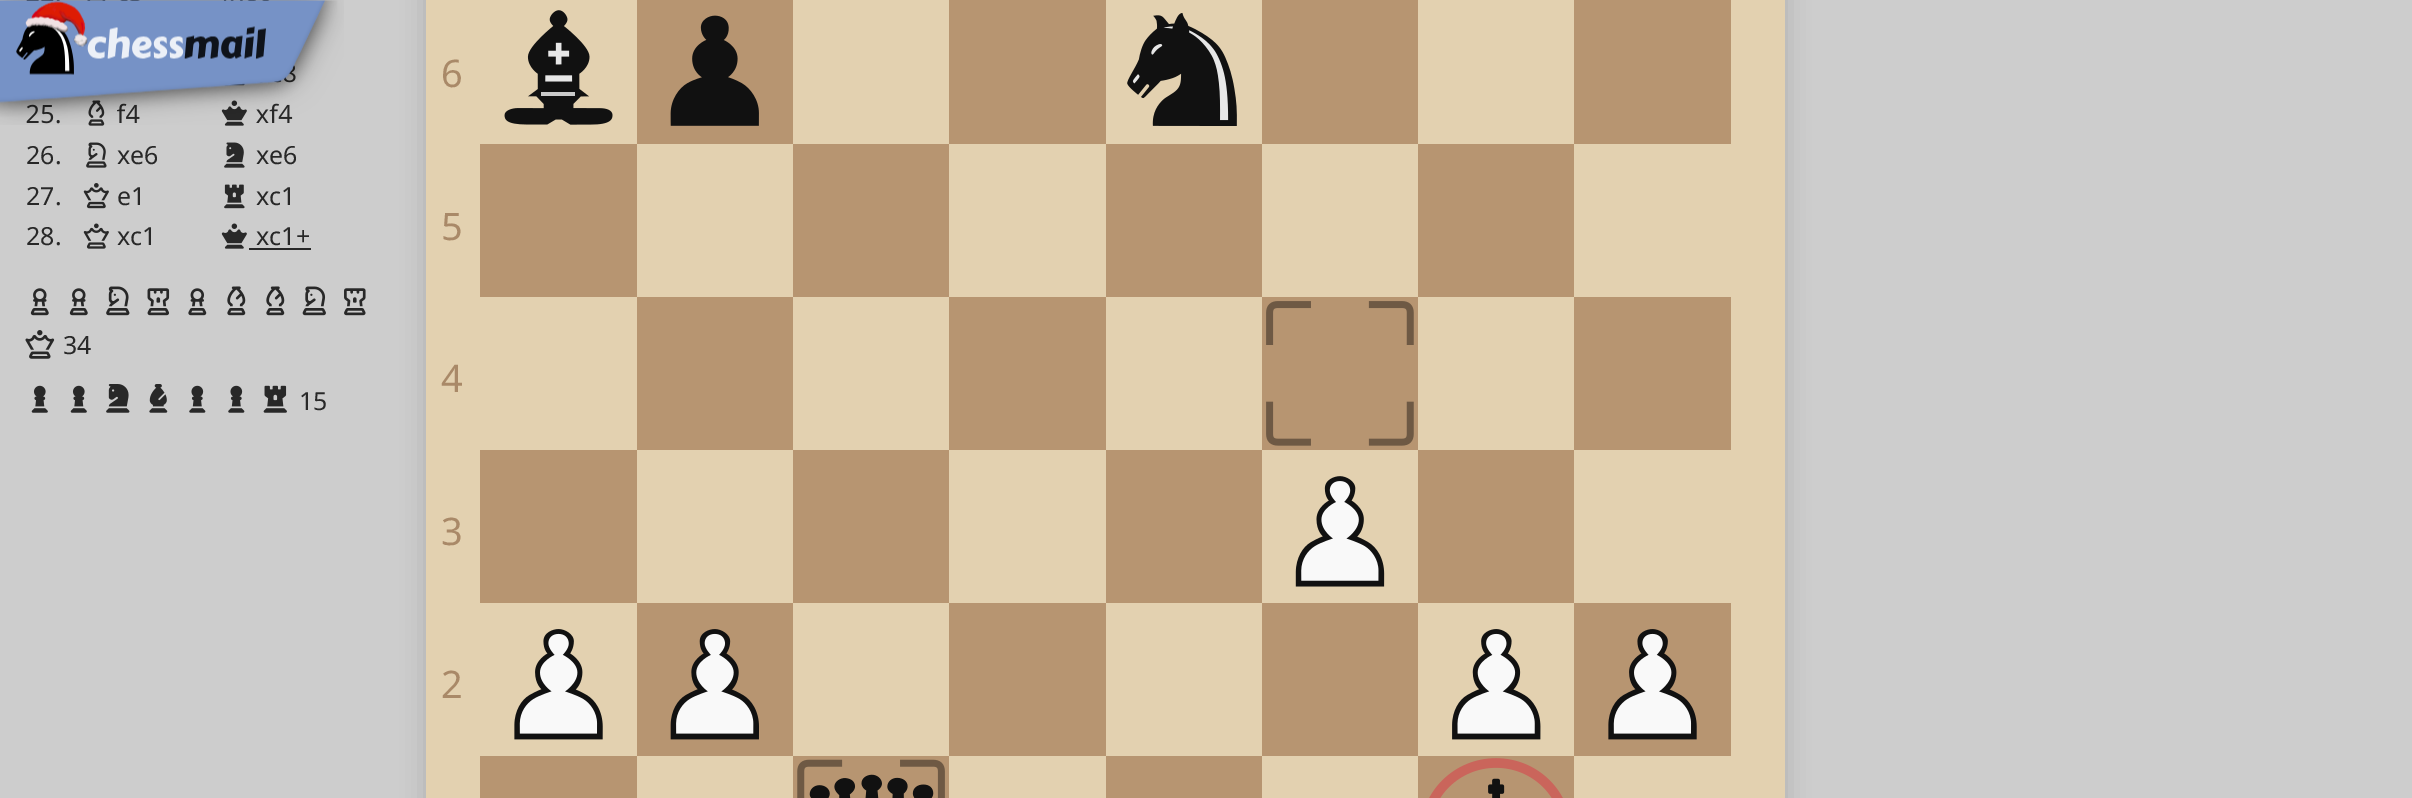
%!PS-Adobe-3.0
%%BoundingBox: 0 0 2412 798
%%LanguageLevel: 3
%%Pages: 1
%%EndComments
%%BeginProlog
/setink { dup -16 bitshift 255 div exch dup -8 bitshift 255 and 255 div exch 255 and 255 div setrgbcolor } def
/usefont { [ exch dup neg 0 0 3 -1 roll 0 0 ] selectfont } def
/setalpha { dup .setfillconstantalpha .setstrokeconstantalpha } def
/rrect { 5 dict begin { /r /h /w /y /x } { exch def } forall
  x r add y moveto x w add y 2 copy h add r arct x w add y h add x 1 index r arct
  x y h add x y r arct x y 2 copy exch w add exch r arct closepath end } def
/softshadow { 12 dict begin { /a /b /q /h /w /y /x } { exch def } forall gsave /was 0 def
  9 -2 -9 { dup b mul 4 div /e exch def 1 sub .425 mul 2.718 exch exp 1 add a .99 .min exch div /now exch def
    1 1 now sub 1 was sub div sub setalpha /was now def
    w h .min e 2 mul add 0 gt { x e sub y e sub w e 2 mul add h e 2 mul add
      q e add b .6 mul add w h .min 2 div e add .min 0 .max rrect fill } if } for grestore end } def
/drawimage { 5 dict begin { /h /w /y /x /name } { exch def } forall
  gsave x y translate w h scale
  w h 8 [w 0 0 h 0 0] name (r) file false 3 colorimage grestore end } def
%%EndProlog
%%BeginSetup
<< /PageSize [2412 798] /PageUsesTransparency true >> setpagedevice
%%EndSetup
%%Page: 1 1
0 .pushpdf14devicefilter
0 798 translate 1 -1 scale
4 setmiterlimit
16#CDCDCD setink
0 0 2412 798 rectfill
(img2.raw) 87 0 19 1 drawimage
(img3.raw) 224 83 21 3 drawimage
/NotoSans-Regular 25 usefont
16#282828 setink
26 123 moveto (25.) show
(img4.raw) 88 100 17 26 drawimage
117 123 moveto (f4) show
(img5.raw) 221 100 26 26 drawimage
256 123 moveto (xf4) show
(img1.raw) 0 0 344 125 drawimage
26 164 moveto (26.) show
(img6.raw) 86 142 21 26 drawimage
117 164 moveto (xe6) show
(img7.raw) 224 142 21 26 drawimage
256 164 moveto (xe6) show
26 205 moveto (27.) show
(img8.raw) 83 183 26 26 drawimage
117 205 moveto (e1) show
(img9.raw) 224 184 21 25 drawimage
256 205 moveto (xc1) show
26 245 moveto (28.) show
(img10.raw) 83 223 26 26 drawimage
117 245 moveto (xc1) show
(img5.raw) 221 223 26 26 drawimage
256 245 moveto (xc1+) show
249 248 62 2 rectfill
(img11.raw) 30 288 19 28 drawimage
(img11.raw) 69 288 19 28 drawimage
(img12.raw) 106 286 24 30 drawimage
(img13.raw) 147 288 23 28 drawimage
(img14.raw) 188 288 19 28 drawimage
(img15.raw) 227 286 19 30 drawimage
(img15.raw) 266 286 19 30 drawimage
(img16.raw) 302 286 24 30 drawimage
(img17.raw) 344 288 22 28 drawimage
(img18.raw) 25 330 30 29 drawimage
63 354 moveto (34) show
(img19.raw) 31 385 17 28 drawimage
(img19.raw) 70 385 17 28 drawimage
(img20.raw) 106 384 24 29 drawimage
(img21.raw) 149 384 19 29 drawimage
(img22.raw) 189 385 17 28 drawimage
(img22.raw) 228 385 17 28 drawimage
(img23.raw) 263 385 24 28 drawimage
299 410 moveto (15) show
16#000000 setink
426 -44 1359 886 8 12 0.15 softshadow
(img24.raw) 426 0 1359 798 drawimage
/NotoSans-Regular 38 usefont
16#A98968 setink
[
    [(6) 441 87]
    [(5) 441 240]
    [(4) 441 392]
    [(3) 441 545]
    [(2) 441 698]
] { aload pop moveto show } forall
.poppdf14devicefilter showpage
%%EOF
